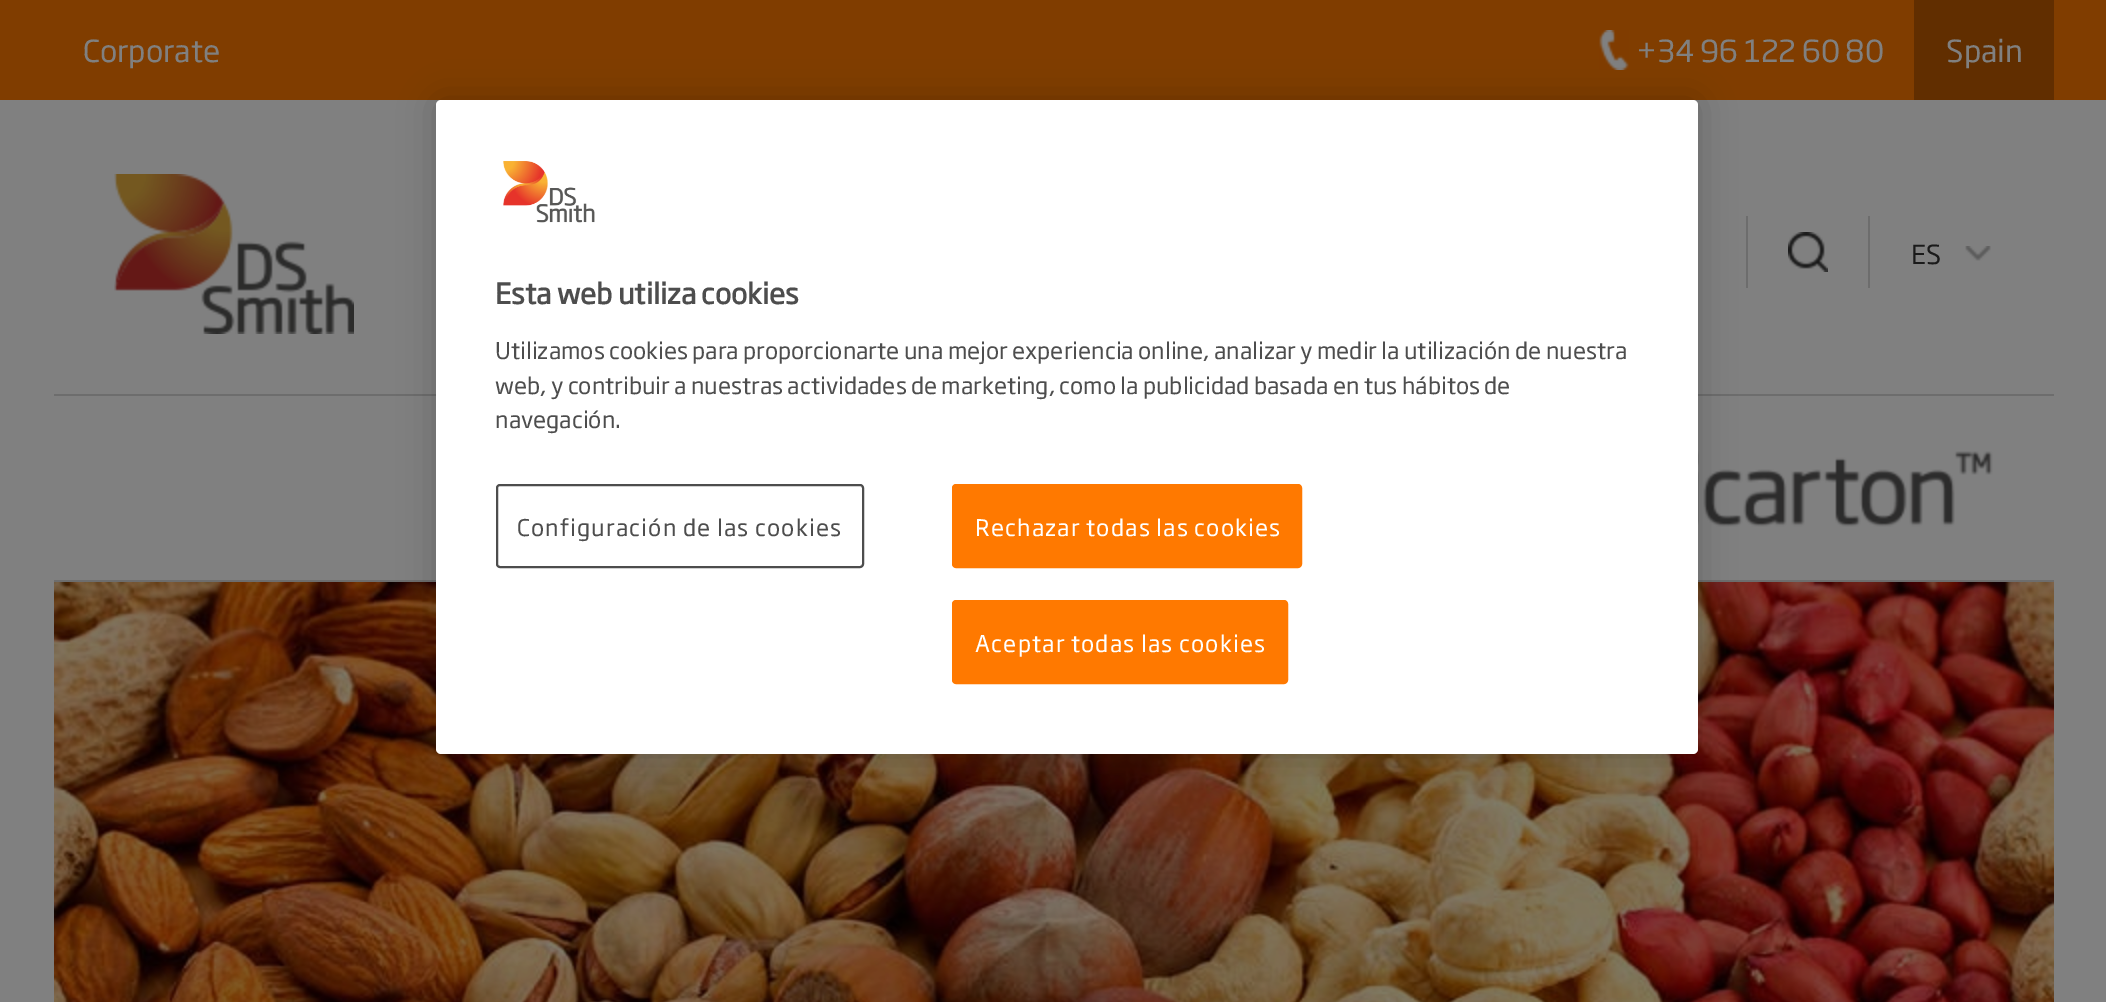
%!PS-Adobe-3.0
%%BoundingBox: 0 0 2106 1002
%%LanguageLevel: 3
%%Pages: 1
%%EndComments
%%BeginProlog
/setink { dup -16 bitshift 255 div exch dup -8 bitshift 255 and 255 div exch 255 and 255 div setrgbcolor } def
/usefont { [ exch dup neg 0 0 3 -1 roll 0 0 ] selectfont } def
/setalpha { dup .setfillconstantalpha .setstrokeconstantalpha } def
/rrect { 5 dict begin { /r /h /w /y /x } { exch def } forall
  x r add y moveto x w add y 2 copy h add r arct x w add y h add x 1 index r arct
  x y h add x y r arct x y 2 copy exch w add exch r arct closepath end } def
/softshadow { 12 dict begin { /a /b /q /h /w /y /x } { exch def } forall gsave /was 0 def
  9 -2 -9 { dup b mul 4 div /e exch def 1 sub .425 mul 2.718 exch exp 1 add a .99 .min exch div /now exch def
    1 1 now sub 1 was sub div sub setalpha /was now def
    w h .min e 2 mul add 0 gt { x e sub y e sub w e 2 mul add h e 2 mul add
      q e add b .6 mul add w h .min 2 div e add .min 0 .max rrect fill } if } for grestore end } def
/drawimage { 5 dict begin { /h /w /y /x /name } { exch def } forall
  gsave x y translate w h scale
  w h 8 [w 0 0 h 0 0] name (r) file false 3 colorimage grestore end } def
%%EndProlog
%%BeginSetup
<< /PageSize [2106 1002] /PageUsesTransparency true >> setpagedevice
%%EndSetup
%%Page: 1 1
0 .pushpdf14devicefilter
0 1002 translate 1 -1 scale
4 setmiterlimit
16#808080 setink
0 0 2106 1002 rectfill
16#803D00 setink
0 0 2106 100 rectfill
/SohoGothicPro-Regular 30 usefont
16#808080 setink
83 62 moveto (Corporate) show
(img1.raw) 1599 30 30 40 drawimage
16#612E00 setink
1914 0 140 100 rectfill
16#808080 setink
1636 62 moveto (+34 96 122 60 80) show
1946 62 moveto (Spain) show
(img2.raw) 114 174 240 160 drawimage
16#6D6D6D setink
54 394 2000 2 rectfill
1746 216 2 72 rectfill
(img3.raw) 1788 232 40 40 drawimage
1868 216 2 72 rectfill
(img4.raw) 1965 246 26 15 drawimage
/SohoGothicPro-Regular 26 usefont
16#1A1A1A setink
1911 264 moveto (ES) show
16#6D6D6D setink
54 580 2000 2 rectfill
(img5.raw) 1698 451 295 76 drawimage
(img6.raw) 54 582 2000 420 drawimage
16#000000 setink
436 100 1262 654 5 18 0.2 softshadow
16#FFFFFF setink
436 100 1262 654 5 rrect fill
(img7.raw) 503 161 92 62 drawimage
/SohoGothicPro-Bold 28 usefont
16#4D4D4D setink
495 304 moveto (Esta web utiliza cookies) show
/SohoGothicPro-Regular 22.75 usefont
[
    [(Utilizamos cookies para proporcionarte una mejor experiencia online, analizar y medir la utilización de nuestra) 495 359]
    [(web, y contribuir a nuestras actividades de marketing, como la publicidad basada en tus hábitos de) 495 394]
    [(navegación.) 495 428]
] { aload pop moveto show } forall
2 setlinewidth
497 485 366 82 3 rrect stroke
517 536 moveto 1.15 0 (Configuración de las cookies) ashow
16#FF7900 setink
953 485 348 82 3 rrect gsave fill grestore
stroke
16#FFFFFF setink
975 536 moveto 1.15 0 (Rechazar todas las cookies) ashow
16#FF7900 setink
953 601 334 82 3 rrect gsave fill grestore
stroke
16#FFFFFF setink
975 652 moveto 1.15 0 (Aceptar todas las cookies) ashow
.poppdf14devicefilter showpage
%%EOF
